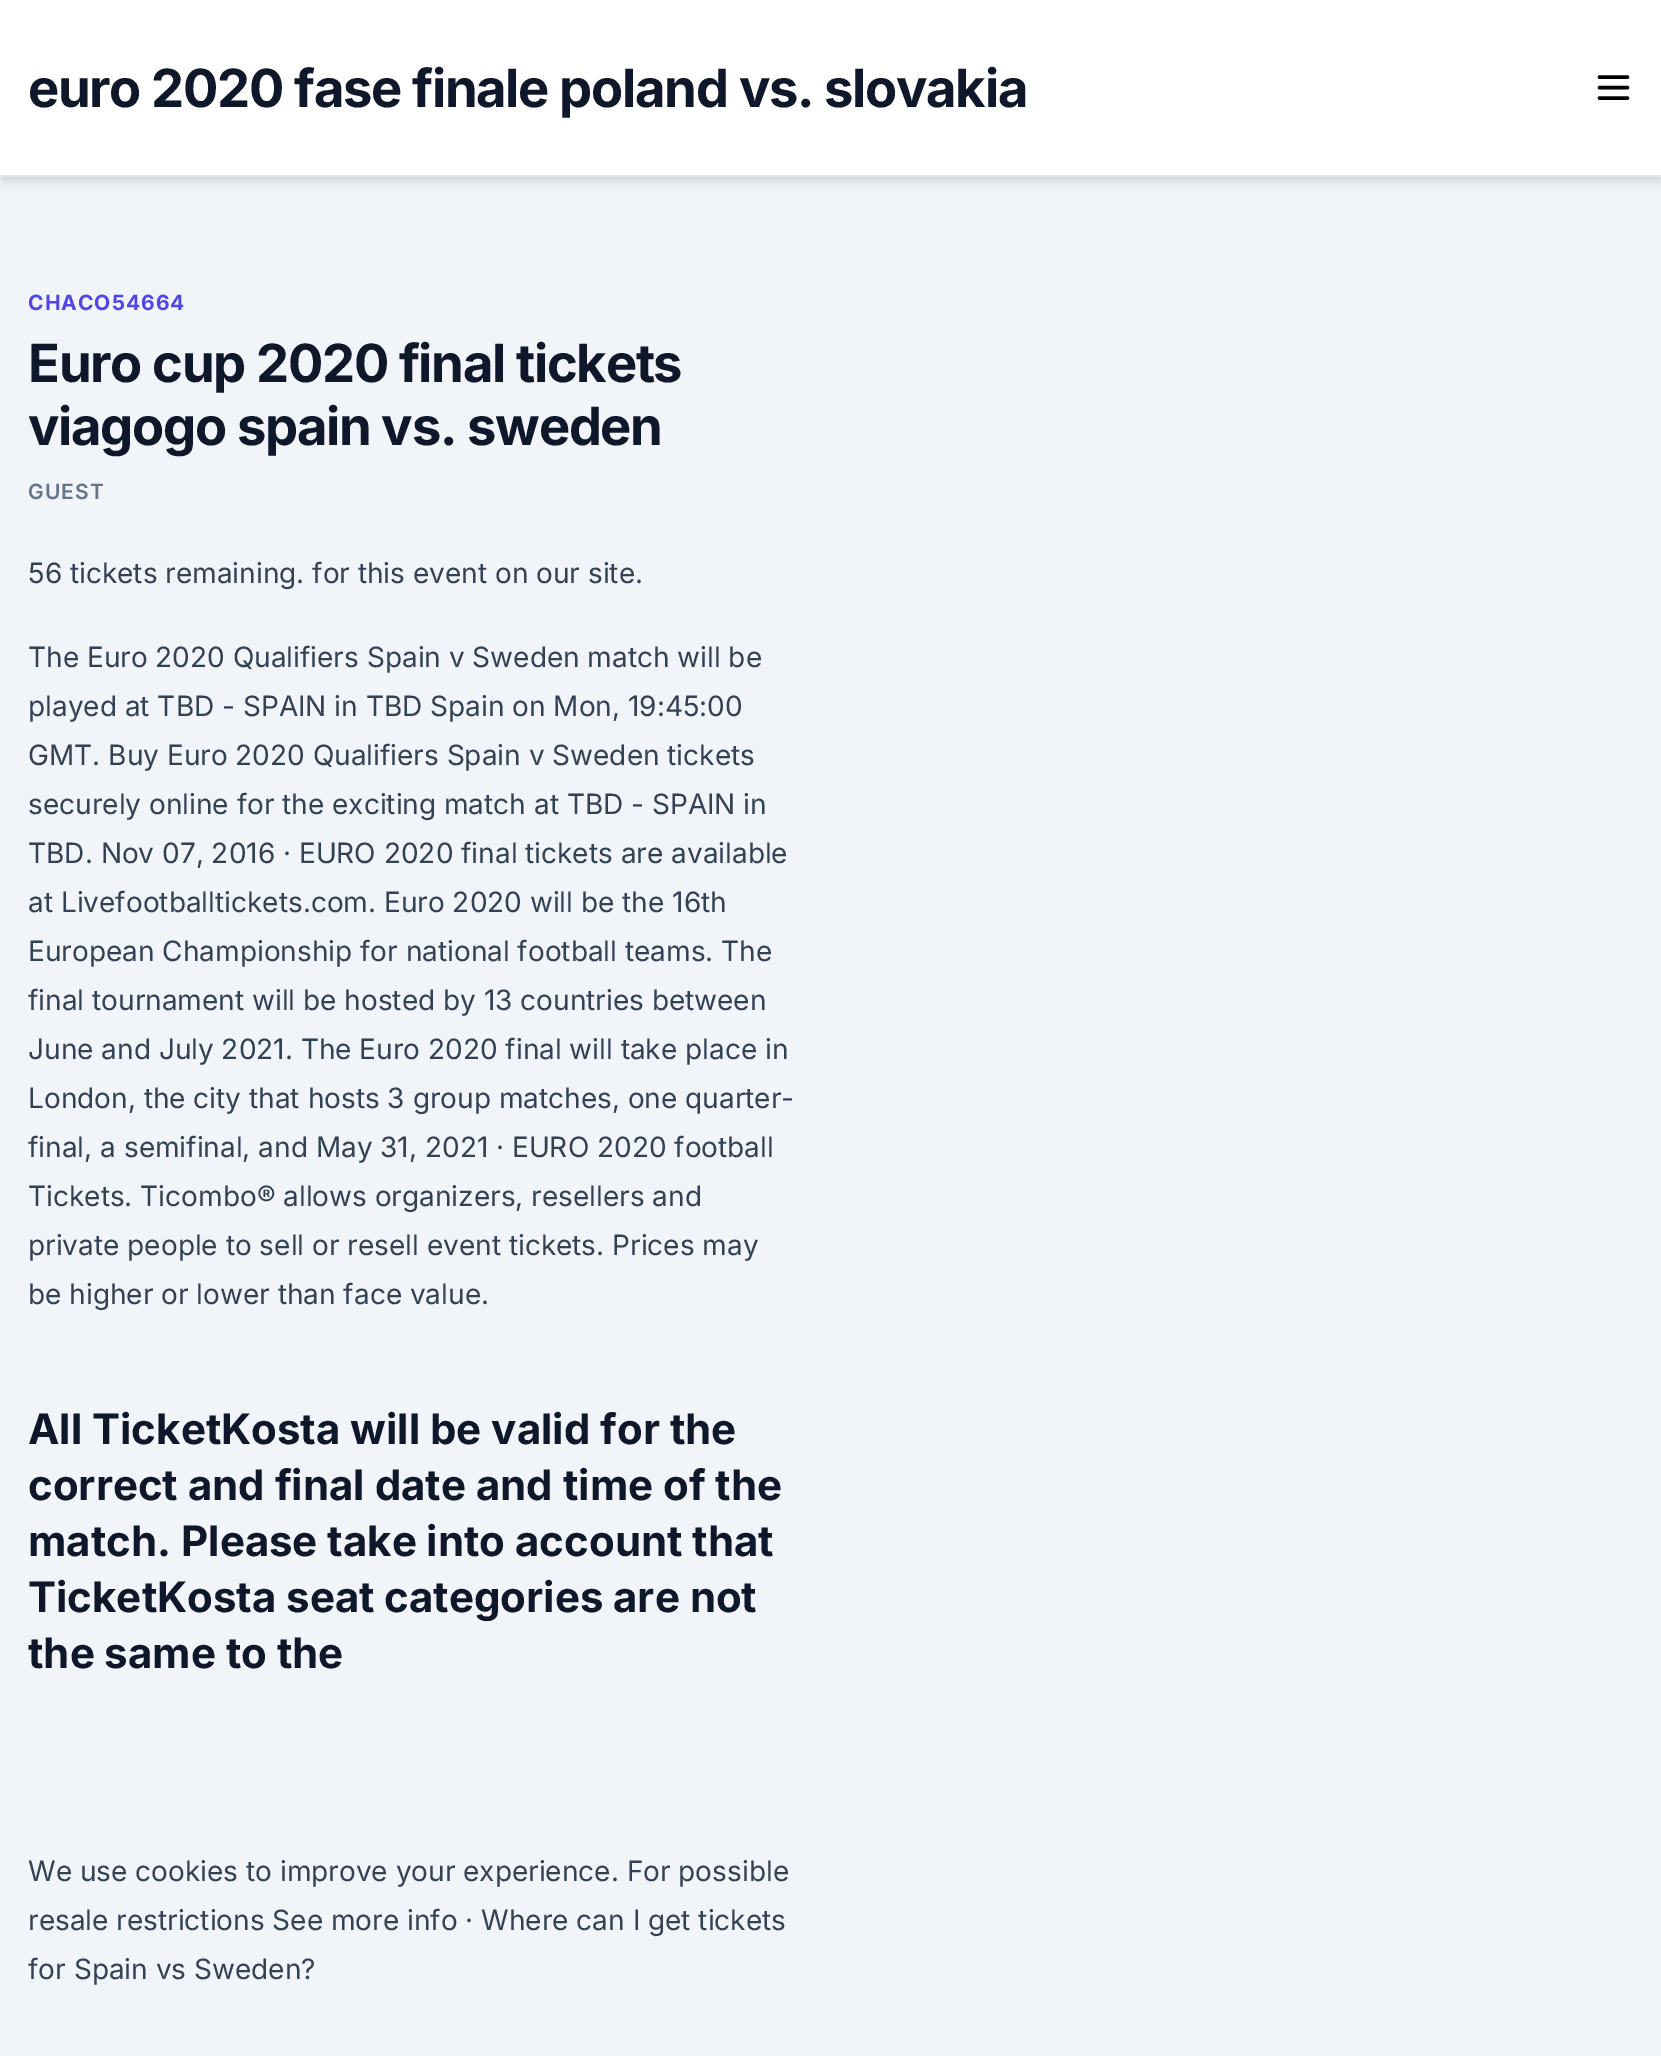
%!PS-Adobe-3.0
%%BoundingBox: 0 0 1661 2056
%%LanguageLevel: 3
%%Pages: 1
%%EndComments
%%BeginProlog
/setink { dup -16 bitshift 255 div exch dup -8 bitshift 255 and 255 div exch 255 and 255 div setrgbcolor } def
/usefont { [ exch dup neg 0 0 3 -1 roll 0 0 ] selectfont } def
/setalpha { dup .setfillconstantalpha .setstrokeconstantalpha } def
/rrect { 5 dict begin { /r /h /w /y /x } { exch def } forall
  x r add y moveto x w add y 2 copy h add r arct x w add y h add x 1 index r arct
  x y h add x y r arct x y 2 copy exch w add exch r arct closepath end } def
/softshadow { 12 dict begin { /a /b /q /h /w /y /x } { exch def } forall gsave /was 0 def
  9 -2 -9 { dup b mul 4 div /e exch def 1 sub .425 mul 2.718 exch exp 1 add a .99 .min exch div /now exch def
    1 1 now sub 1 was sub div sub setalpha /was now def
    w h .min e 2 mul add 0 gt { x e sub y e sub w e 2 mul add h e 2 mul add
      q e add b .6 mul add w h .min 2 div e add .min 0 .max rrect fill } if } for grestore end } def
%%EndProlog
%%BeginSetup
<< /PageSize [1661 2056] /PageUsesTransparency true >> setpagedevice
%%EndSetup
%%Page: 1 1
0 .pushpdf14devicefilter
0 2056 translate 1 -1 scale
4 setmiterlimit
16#F1F5F9 setink
0 0 1661 2056 rectfill
16#000000 setink
2 5 1659 174 0 3.5 0.06 softshadow
2 9 1659 173 0 5 0.1 softshadow
16#FFFFFF setink
0 0 1661 175 rectfill
/Inter-Bold 52.5 usefont
16#0F172A setink
28 107 moveto -1.3 0 (euro 2020 fase finale poland vs. slovakia) ashow
16#000000 setink
3.5 setlinewidth
1 setlinecap
1 setlinejoin
1599.5 77 moveto 1627.5 77 lineto 1599.5 87.5 moveto 1627.5 87.5 lineto 1599.5 98 moveto 1627.5 98 lineto stroke
16#E2E8F0 setink
0 175 1661 2 rectfill
/Inter-Bold 21 usefont
16#4F46E5 setink
28 310 moveto 1 0 (CHACO54664) ashow
/Inter-Bold 52.5 usefont
16#0F172A setink
28 382 moveto -1.3 0 (Euro cup 2020 final tickets) ashow
28 445 moveto -1.3 0 (viagogo spain vs. sweden) ashow
/Inter-SemiBold 21 usefont
16#64748B setink
28 499 moveto 1 0 (GUEST) ashow
/Inter-Regular 28 usefont
16#334155 setink
[
    [(56 tickets remaining. for this event on our site.) 28 583]
    [(The Euro 2020 Qualifiers Spain v Sweden match will be) 28 667]
    [(played at TBD - SPAIN in TBD Spain on Mon, 19:45:00) 28 716]
    [(GMT. Buy Euro 2020 Qualifiers Spain v Sweden tickets) 28 765]
    [(securely online for the exciting match at TBD - SPAIN in) 28 814]
    [(TBD. Nov 07, 2016 · EURO 2020 final tickets are available) 28 863]
    [(at Livefootballtickets.com. Euro 2020 will be the 16th) 28 912]
    [(European Championship for national football teams. The) 28 961]
    [(final tournament will be hosted by 13 countries between) 28 1010]
    [(June and July 2021. The Euro 2020 final will take place in) 28 1059]
    [(London, the city that hosts 3 group matches, one quarter-) 28 1108]
    [(final, a semifinal, and May 31, 2021 · EURO 2020 football) 28 1157]
    [(Tickets. Ticombo® allows organizers, resellers and) 28 1206]
    [(private people to sell or resell event tickets. Prices may) 28 1255]
    [(be higher or lower than face value.) 28 1304]
] { aload pop moveto show } forall
/Inter-Bold 42 usefont
16#0F172A setink
[
    [(All TicketKosta will be valid for the) 28 1444]
    [(correct and final date and time of the) 28 1500]
    [(match. Please take into account that) 28 1556]
    [(TicketKosta seat categories are not) 28 1612]
    [(the same to the) 28 1668]
] { aload pop moveto show } forall
/Inter-Regular 28 usefont
16#334155 setink
[
    [(We use cookies to improve your experience. For possible) 28 1881]
    [(resale restrictions See more info · Where can I get tickets) 28 1930]
    [(for Spain vs Sweden?) 28 1979]
] { aload pop moveto show } forall
.poppdf14devicefilter showpage
%%EOF
